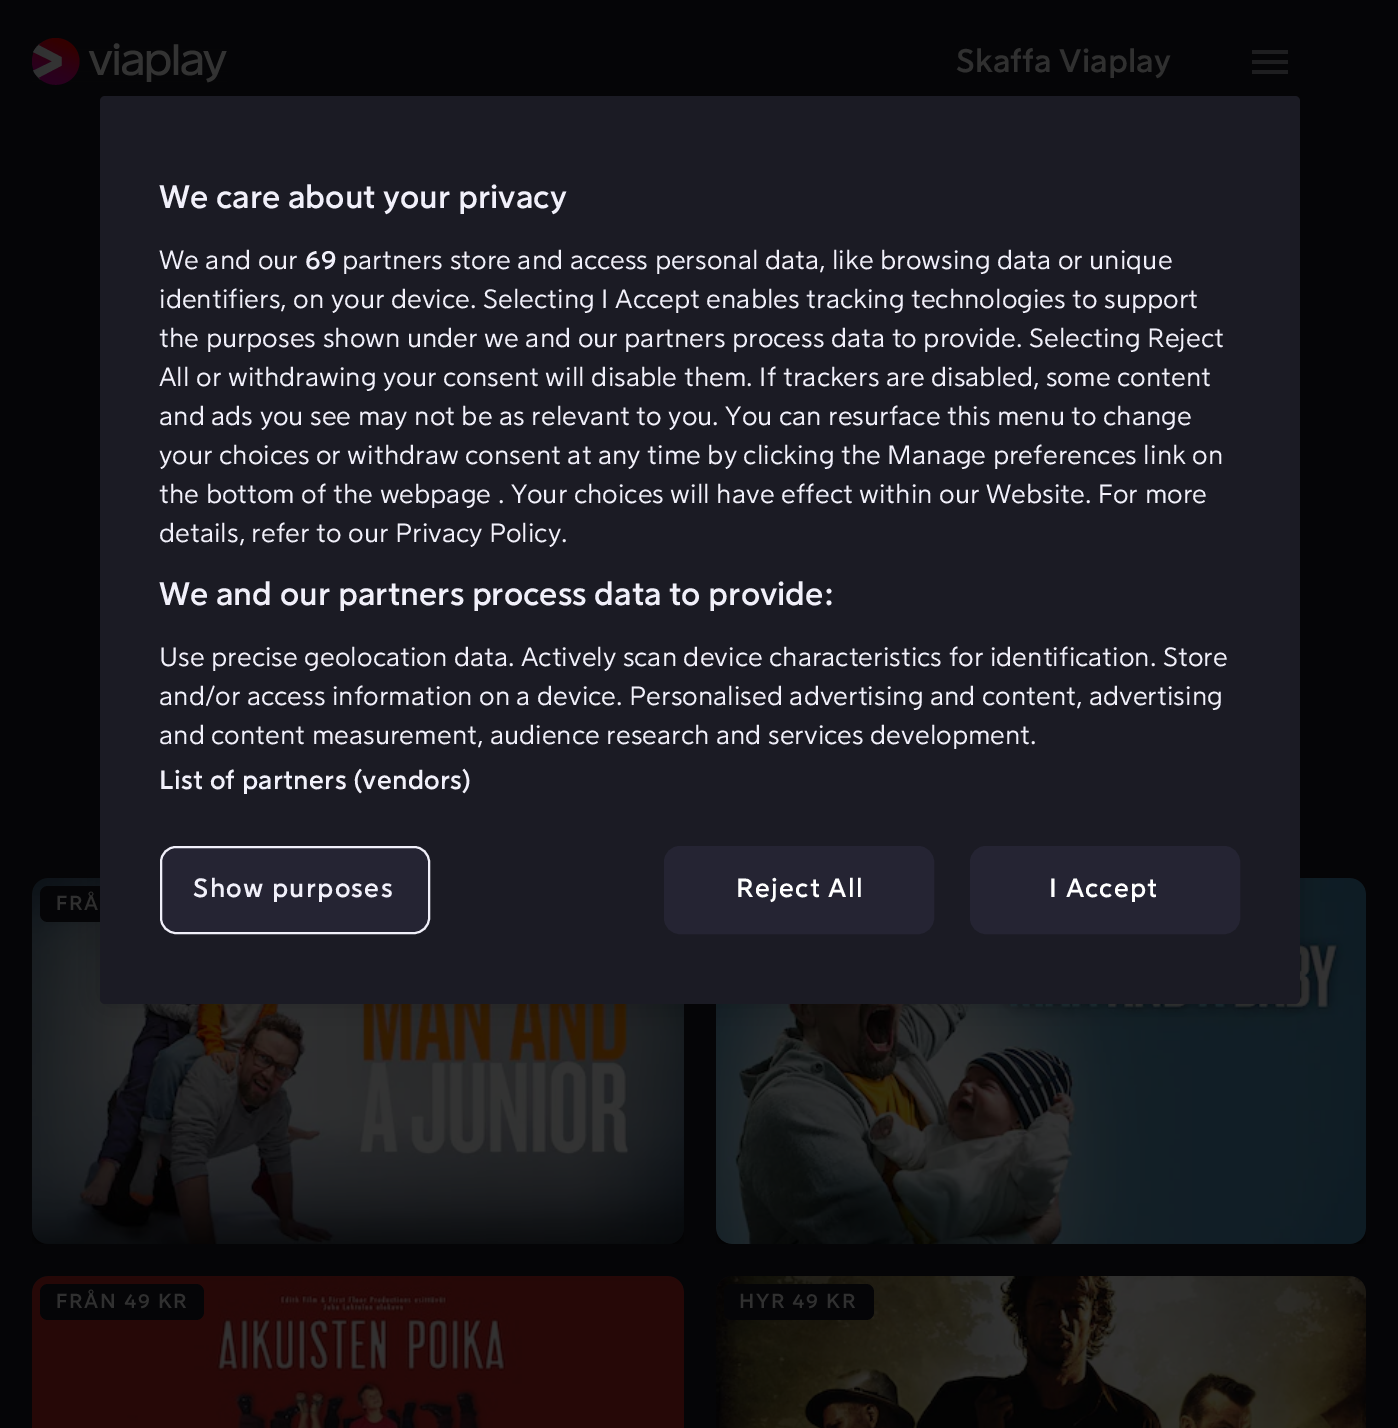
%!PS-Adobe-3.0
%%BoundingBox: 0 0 1398 1428
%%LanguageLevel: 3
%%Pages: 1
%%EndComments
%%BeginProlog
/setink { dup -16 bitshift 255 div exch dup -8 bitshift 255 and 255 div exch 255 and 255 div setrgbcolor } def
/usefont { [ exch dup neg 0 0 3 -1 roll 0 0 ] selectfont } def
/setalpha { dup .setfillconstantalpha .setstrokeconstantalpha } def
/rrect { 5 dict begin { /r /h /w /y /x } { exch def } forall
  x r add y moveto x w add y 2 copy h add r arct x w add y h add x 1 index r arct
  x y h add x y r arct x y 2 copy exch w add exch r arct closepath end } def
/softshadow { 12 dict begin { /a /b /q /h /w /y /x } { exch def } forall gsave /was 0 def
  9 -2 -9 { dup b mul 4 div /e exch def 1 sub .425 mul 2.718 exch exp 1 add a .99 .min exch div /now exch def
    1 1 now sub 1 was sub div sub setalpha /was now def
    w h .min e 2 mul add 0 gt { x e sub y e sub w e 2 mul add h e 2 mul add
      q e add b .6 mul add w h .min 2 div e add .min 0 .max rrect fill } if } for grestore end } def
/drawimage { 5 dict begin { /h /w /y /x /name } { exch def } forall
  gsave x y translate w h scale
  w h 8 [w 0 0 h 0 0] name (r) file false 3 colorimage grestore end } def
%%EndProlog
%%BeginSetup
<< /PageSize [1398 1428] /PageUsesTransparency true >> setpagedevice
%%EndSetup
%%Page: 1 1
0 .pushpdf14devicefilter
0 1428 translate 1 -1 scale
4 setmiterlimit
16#050507 setink
0 0 1398 1428 rectfill
(img1.raw) 32 38 195 47 drawimage
/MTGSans-Bold 32 usefont
16#303030 setink
956 72 moveto (Skaffa Viaplay) show
16#1E1E20 setink
1254 50 moveto 1252 50 lineto 1252 54 lineto 1288 54 lineto 1288 50 lineto closepath 1252 60 moveto 1288 60 lineto 1288 64 lineto 1252 64 lineto closepath 1252 70 moveto 1288 70 lineto 1288 74 lineto 1252 74 lineto closepath eofill
16#0A090C setink
32 878 652 366 16 rrect fill
(img2.raw) 32 878 652 366 drawimage
16#050507 setink
40 886 164 36 8 rrect fill
/MTGSans-Bold 20 usefont
16#303030 setink
56 910 moveto 1.6 0 (FRÅ) ashow
16#0A090C setink
716 878 650 366 16 rrect fill
(img3.raw) 716 878 650 366 drawimage
32 1276 652 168 16 rrect fill
(img4.raw) 32 1276 652 152 drawimage
16#050507 setink
40 1284 164 36 8 rrect fill
16#303030 setink
56 1308 moveto 1.6 0 (FRÅN 49 KR) ashow
16#0A090C setink
716 1276 650 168 16 rrect fill
(img5.raw) 716 1276 650 152 drawimage
16#050507 setink
724 1284 150 36 8 rrect fill
16#303030 setink
739 1308 moveto 1.6 0 (HYR 49 KR) ashow
16#000000 setink
100 96 1200 908 5 18 0.2 softshadow
16#1B1B24 setink
100 96 1200 908 5 rrect fill
/MTGSans-Bold 32 usefont
16#F1F0FA setink
159 208 moveto (We care about your privacy) show
/MTGSans-Regular 26 usefont
159 269 moveto (We and our) show
/MTGSans-Bold 26 usefont
305 269 moveto (69) show
/MTGSans-Regular 26 usefont
[
    [(partners store and access personal data, like browsing data or unique) 342 269]
    [(identifiers, on your device. Selecting I Accept enables tracking technologies to support) 159 308]
    [(the purposes shown under we and our partners process data to provide. Selecting Reject) 159 347]
    [(All or withdrawing your consent will disable them. If trackers are disabled, some content) 159 386]
    [(and ads you see may not be as relevant to you. You can resurface this menu to change) 159 425]
    [(your choices or withdraw consent at any time by clicking the Manage preferences link on) 159 464]
    [(the bottom of the webpage . Your choices will have effect within our Website. For more) 159 503]
    [(details, refer to our Privacy Policy.) 159 542]
] { aload pop moveto show } forall
/MTGSans-Bold 32 usefont
159 605 moveto (We and our partners process data to provide:) show
/MTGSans-Regular 26 usefont
[
    [(Use precise geolocation data. Actively scan device characteristics for identification. Store) 159 666]
    [(and/or access information on a device. Personalised advertising and content, advertising) 159 705]
    [(and content measurement, audience research and services development.) 159 744]
] { aload pop moveto show } forall
/MTGSans-Bold 26 usefont
159 789 moveto 0.25 0 (List of partners \(vendors\)) ashow
16#252433 setink
161 847 268 86 15 rrect gsave fill grestore
16#F1F0FA setink
2 setlinewidth
stroke
193 897 moveto 1.25 0 (Show purposes) ashow
16#252433 setink
665 847 268 86 15 rrect gsave fill grestore
stroke
16#FFFFFF setink
736 897 moveto 1.25 0 (Reject All) ashow
16#252433 setink
971 847 268 86 15 rrect gsave fill grestore
stroke
16#FFFFFF setink
1049 897 moveto 1.25 0 (I Accept) ashow
.poppdf14devicefilter showpage
%%EOF
